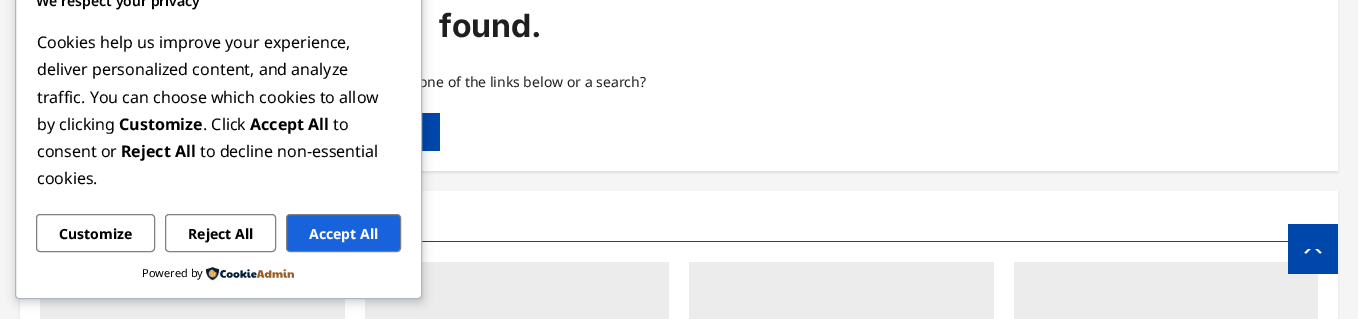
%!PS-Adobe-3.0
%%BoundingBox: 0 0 1358 319
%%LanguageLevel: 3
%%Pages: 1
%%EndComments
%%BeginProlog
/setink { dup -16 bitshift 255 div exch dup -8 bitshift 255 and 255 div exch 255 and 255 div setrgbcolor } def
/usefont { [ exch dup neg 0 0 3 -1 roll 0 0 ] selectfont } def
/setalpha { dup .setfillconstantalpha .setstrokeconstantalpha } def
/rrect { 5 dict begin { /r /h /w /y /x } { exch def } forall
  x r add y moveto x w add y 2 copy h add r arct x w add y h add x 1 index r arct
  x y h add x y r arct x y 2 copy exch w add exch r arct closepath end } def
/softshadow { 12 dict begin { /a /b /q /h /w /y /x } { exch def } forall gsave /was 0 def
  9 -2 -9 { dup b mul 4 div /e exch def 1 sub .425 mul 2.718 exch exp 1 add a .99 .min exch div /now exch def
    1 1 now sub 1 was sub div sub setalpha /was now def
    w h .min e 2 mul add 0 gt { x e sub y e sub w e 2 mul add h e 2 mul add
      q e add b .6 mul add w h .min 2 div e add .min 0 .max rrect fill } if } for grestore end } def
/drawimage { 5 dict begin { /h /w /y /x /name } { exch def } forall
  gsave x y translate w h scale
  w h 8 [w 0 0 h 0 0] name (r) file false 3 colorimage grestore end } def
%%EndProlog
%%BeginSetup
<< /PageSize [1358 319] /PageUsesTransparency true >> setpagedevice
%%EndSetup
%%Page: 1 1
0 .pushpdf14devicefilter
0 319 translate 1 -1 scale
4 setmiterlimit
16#F5F5F5 setink
0 0 1358 319 rectfill
16#000000 setink
20 -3 1318 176 0 1 0.08 softshadow
16#FFFFFF setink
422 0 916 171 rectfill
16#0047AB setink
422 113 18 38 rectfill
16#000000 setink
20 193 1318 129 0 1 0.08 softshadow
[
    [20 191 1318 128 16#FFFFFF]
    [422 241 866 1 16#0047AB]
    [40 299 305 20 16#ECECEC]
    [365 262 304 57 16#ECECEC]
] { aload pop setink rectfill } forall
16#000000 setink
16 -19 407 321 4 5 0.2 softshadow
/NotoSans-Regular 14 usefont
16#1F1F1F setink
419 87 moveto (one of the links below or a search?) show
16#FFFFFF setink
15.5 -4.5 406 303 3.5 rrect gsave fill grestore
16#ABB8C3 setink
stroke
/NotoSans-SemiBold 14 usefont
16#000000 setink
36 6 moveto (We respect your privacy) show
/NotoSans-Regular 16 usefont
[
    [(Cookies help us improve your experience,) 37 48]
    [(deliver personalized content, and analyze) 37 75]
    [(traffic. You can choose which cookies to allow) 37 103]
    [(by clicking) 37 130]
] { aload pop moveto show } forall
/NotoSans-Bold 16 usefont
119 130 moveto (Customize) show
/NotoSans-Regular 16 usefont
203 130 moveto (. Click) show
/NotoSans-Bold 16 usefont
250 130 moveto (Accept All) show
/NotoSans-Regular 16 usefont
333 130 moveto (to) show
37 157 moveto (consent or) show
/NotoSans-Bold 16 usefont
121 157 moveto (Reject All) show
/NotoSans-Regular 16 usefont
200 157 moveto (to decline non-essential) show
37 184 moveto (cookies.) show
16#808080 setink
36.5 214.5 118 37 3.5 rrect stroke
/NotoSans-Bold 14 usefont
16#000000 setink
59 239 moveto (Customize) show
16#808080 setink
165.5 214.5 110 37 3.5 rrect stroke
16#000000 setink
188 239 moveto (Reject All) show
16#1863DC setink
286.5 214.5 114 37 3.5 rrect gsave fill grestore
16#808080 setink
stroke
16#FFFFFF setink
309 239 moveto (Accept All) show
/NotoSans-Regular 11 usefont
16#000000 setink
142 277 moveto (Powered by) show
(img1.raw) 206 267 88 14 drawimage
/Inter-Bold 32 usefont
16#1F1F1F setink
439 37 moveto (found.) show
[
    [689 262 305 57 16#ECECEC]
    [1014 262 304 57 16#ECECEC]
    [1288 224 50 50 16#0047AB]
] { aload pop setink rectfill } forall
16#FFFFFF setink
1308 254 moveto 1311 254 1319.5 255 1321.5 252.5 curveto 1318 249 lineto 1308 249 lineto 1304.5 252.5 lineto 1305 253.5 1306.5 254 1308 254 curveto closepath fill
16#0047AB setink
1323 257 moveto 1303 257 lineto 1313 247 lineto closepath fill
.poppdf14devicefilter showpage
%%EOF
